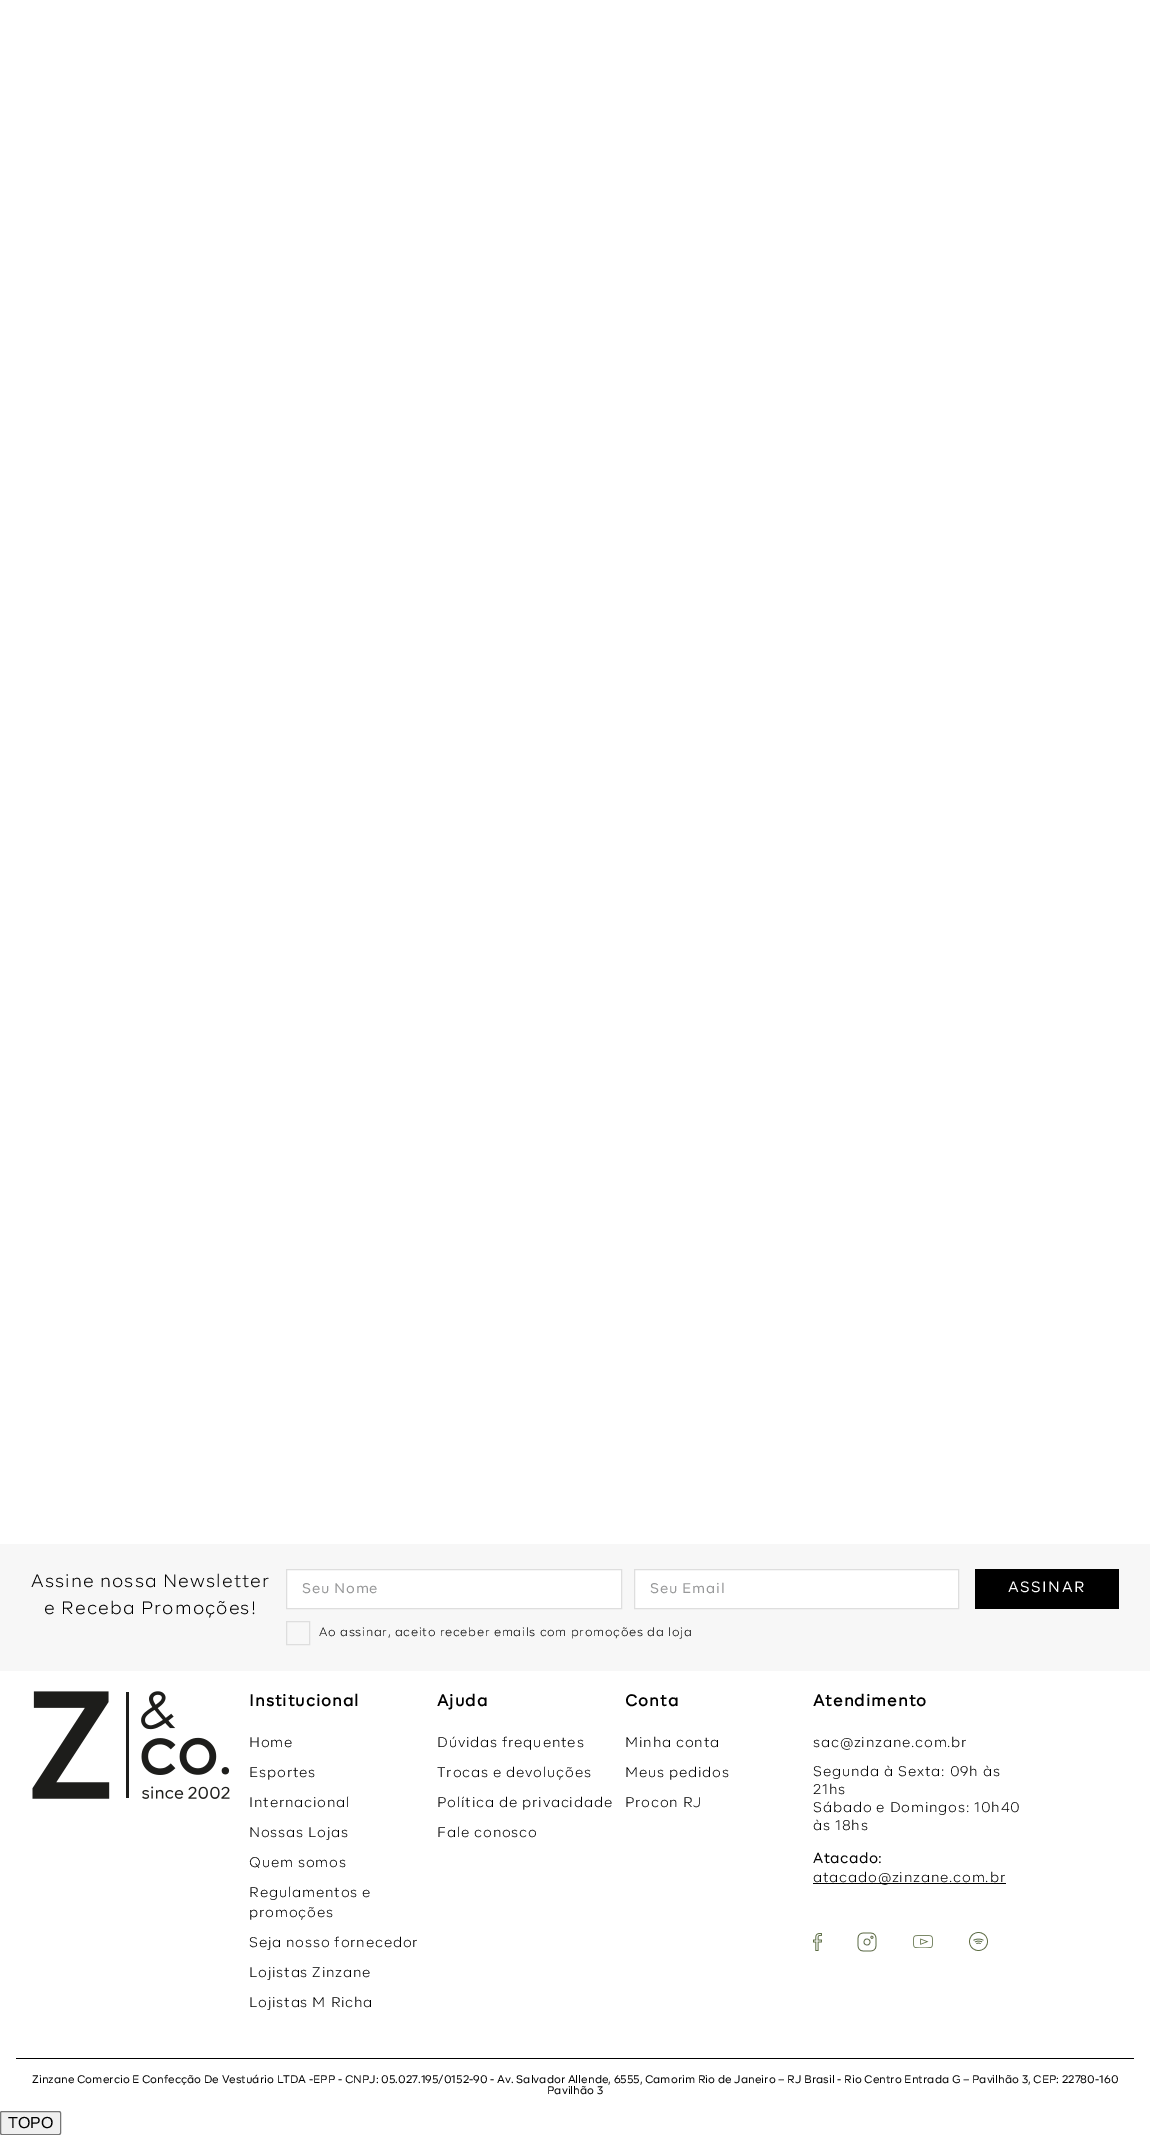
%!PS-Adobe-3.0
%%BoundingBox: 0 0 1150 2135
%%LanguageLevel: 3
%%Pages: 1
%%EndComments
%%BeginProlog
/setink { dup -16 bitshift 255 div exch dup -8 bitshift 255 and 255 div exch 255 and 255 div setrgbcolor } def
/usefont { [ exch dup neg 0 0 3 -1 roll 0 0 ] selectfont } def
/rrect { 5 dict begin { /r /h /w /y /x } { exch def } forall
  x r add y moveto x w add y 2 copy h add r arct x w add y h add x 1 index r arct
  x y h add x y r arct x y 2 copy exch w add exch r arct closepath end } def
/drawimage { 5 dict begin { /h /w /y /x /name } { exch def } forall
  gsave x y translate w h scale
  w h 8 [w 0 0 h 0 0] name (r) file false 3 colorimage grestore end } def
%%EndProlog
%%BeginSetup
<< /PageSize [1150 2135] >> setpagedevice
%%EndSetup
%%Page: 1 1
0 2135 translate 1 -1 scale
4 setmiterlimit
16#FFFFFF setink
0 0 1150 2135 rectfill
16#F7F7F7 setink
0 1544 1150 127 rectfill
/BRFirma-Light 18 usefont
16#000000 setink
31 1587 moveto 1.1 0 (Assine nossa Newsletter) ashow
44 1614 moveto 1.1 0 (e Receba Promoções!) ashow
16#FFFFFF setink
286.5 1569.5 moveto 621.5 1569.5 lineto 621.5 1608.5 lineto 286.5 1608.5 lineto closepath gsave fill grestore
16#DEDEDE setink
stroke
/BRFirma-Regular 14 usefont
16#979899 setink
302 1593 moveto 0.8 0 (Seu Nome) ashow
16#FFFFFF setink
634.5 1569.5 moveto 958.5 1569.5 lineto 958.5 1608.5 lineto 634.5 1608.5 lineto closepath gsave fill grestore
16#DEDEDE setink
stroke
16#979899 setink
650 1593 moveto 0.8 0 (Seu Email) ashow
16#DEDEDE setink
286.5 1621.5 23 23 rectstroke
/BRFirma-Light 12 usefont
16#000000 setink
319 1636 moveto 0.72 0 (Ao assinar, aceito receber emails com promoções da loja) ashow
975 1569 144 40 rectfill
/BRFirma-Regular 15 usefont
16#FFFFFF setink
1008 1592 moveto 1.5 0 (ASSINAR) ashow
(img1.raw) 32 1691 198 108 drawimage
/BRFirma-Bold 16 usefont
16#000000 setink
249 1706 moveto 1 0 (Institucional) ashow
/BRFirma-Light 14 usefont
249 1747 moveto 0.8 0 (Home) ashow
249 1777 moveto 0.8 0 (Esportes) ashow
249 1807 moveto 0.8 0 (Internacional) ashow
249 1837 moveto 0.8 0 (Nossas Lojas) ashow
249 1867 moveto 0.8 0 (Quem somos) ashow
249 1897 moveto 0.8 0 (Regulamentos e) ashow
249 1917 moveto 0.8 0 (promoções) ashow
249 1947 moveto 0.8 0 (Seja nosso fornecedor) ashow
249 1977 moveto 0.8 0 (Lojistas Zinzane) ashow
249 2007 moveto 0.8 0 (Lojistas M Richa) ashow
/BRFirma-Bold 16 usefont
437 1706 moveto 1 0 (Ajuda) ashow
/BRFirma-Light 14 usefont
437 1747 moveto 0.8 0 (Dúvidas frequentes) ashow
437 1777 moveto 0.8 0 (Trocas e devoluções) ashow
437 1807 moveto 0.8 0 (Política de privacidade) ashow
437 1837 moveto 0.8 0 (Fale conosco) ashow
/BRFirma-Bold 16 usefont
625 1706 moveto 1 0 (Conta) ashow
/BRFirma-Light 14 usefont
625 1747 moveto 0.8 0 (Minha conta) ashow
625 1777 moveto 0.8 0 (Meus pedidos) ashow
625 1807 moveto 0.8 0 (Procon RJ) ashow
/BRFirma-Bold 16 usefont
813 1706 moveto 1 0 (Atendimento) ashow
/BRFirma-Light 14 usefont
813 1747 moveto 0.8 0 (sac@zinzane.com.br) ashow
813 1776 moveto 0.8 0 (Segunda à Sexta: 09h às) ashow
813 1794 moveto 0.8 0 (21hs) ashow
813 1812 moveto 0.8 0 (Sábado e Domingos: 10h40) ashow
813 1830 moveto 0.8 0 (às 18hs) ashow
/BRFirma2-Bold 14 usefont
813 1863 moveto 0.8 0 (Atacado:) ashow
813 1883 193 1 rectfill
/BRFirma-Light 14 usefont
813 1882 moveto 0.8 0 (atacado@zinzane.com.br) ashow
(img2.raw) 813 1933 9 18 drawimage
(img3.raw) 857 1932 20 20 drawimage
(img4.raw) 913 1935 20 13 drawimage
(img5.raw) 969 1932 19 19 drawimage
16 2058 1118 1 rectfill
/BRFirma-Regular 11 usefont
32 2083 moveto (Zinzane Comercio E Confecção De Vestuário LTDA -EPP - CNPJ: 05.027.195/0152-90 - Av. Salvador Allende, 6555, Camorim Rio de Janeiro – RJ Brasil - Rio Centro Entrada G – Pavilhão 3, CEP: 22780-160) show
547 2094 moveto (Pavilhão 3) show
16#EFEFEF setink
0.5 2111.5 60 23 1.5 rrect gsave fill grestore
16#767676 setink
stroke
/LiberationSans-Regular 16 usefont
16#000000 setink
8 2128 moveto (TOPO) show
showpage
%%EOF
